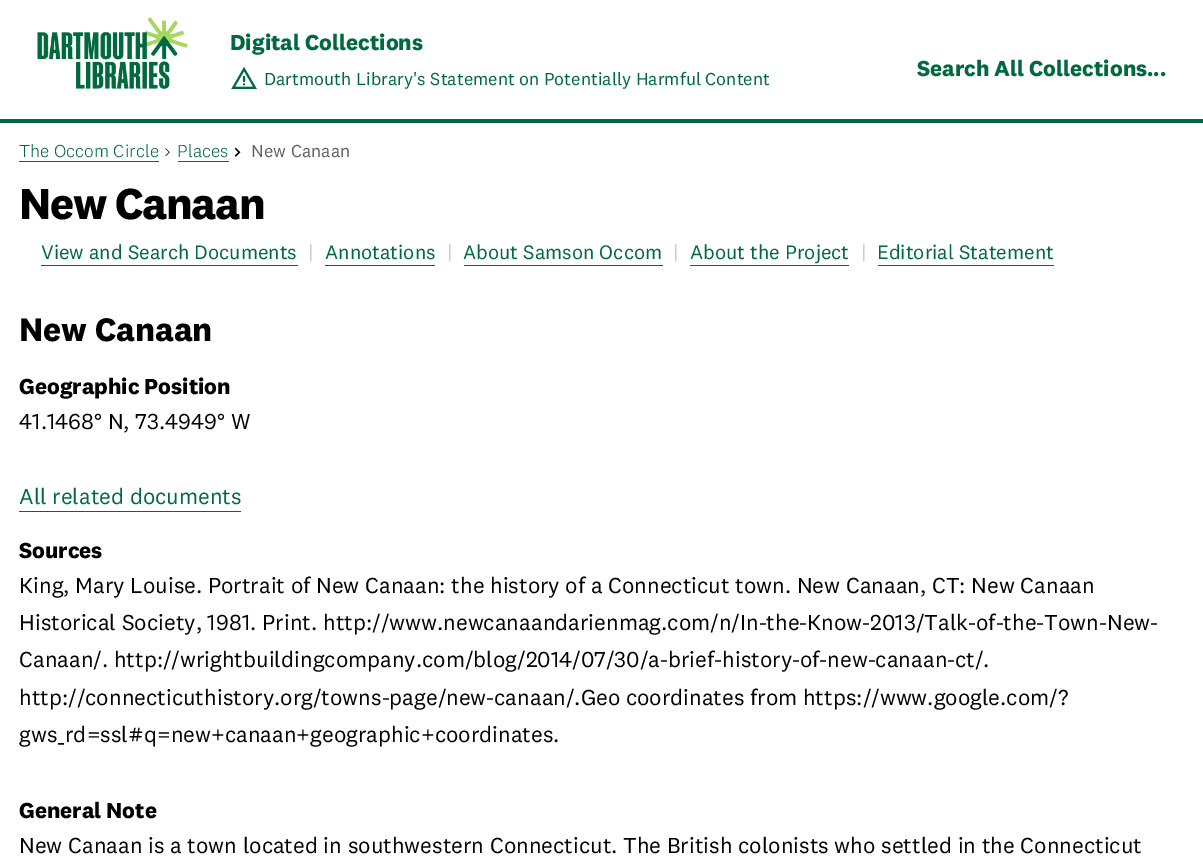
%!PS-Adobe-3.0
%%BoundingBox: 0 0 1203 866
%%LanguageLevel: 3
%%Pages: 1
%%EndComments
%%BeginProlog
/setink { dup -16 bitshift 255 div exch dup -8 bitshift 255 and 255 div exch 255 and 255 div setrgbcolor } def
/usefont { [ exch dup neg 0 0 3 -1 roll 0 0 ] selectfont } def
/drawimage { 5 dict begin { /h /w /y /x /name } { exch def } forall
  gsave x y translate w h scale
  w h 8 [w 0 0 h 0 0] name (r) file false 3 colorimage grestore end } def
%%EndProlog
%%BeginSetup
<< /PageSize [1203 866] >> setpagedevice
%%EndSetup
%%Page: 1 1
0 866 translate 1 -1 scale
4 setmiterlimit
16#FFFFFF setink
0 0 1203 866 rectfill
16#00693E setink
0 119 1203 4 rectfill
(img1.raw) 37 17 151 72 drawimage
/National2-Bold 22.5 usefont
230 50 moveto (Digital Collections) show
(img2.raw) 231 66 26 23 drawimage
/National2-Regular 18 usefont
264 85 moveto (Dartmouth Library's Statement on Potentially Harmful Content) show
/National2-Bold 22.5 usefont
917 76 moveto (Search All Collections...) show
/National2-Light 18 usefont
19 157 moveto 0.1 0 (The Occom Circle) ashow
19 161 140 1 rectfill
(img3.raw) 165 148 5 9 drawimage
177 157 moveto 0.1 0 (Places) ashow
178 161 51 1 rectfill
(img4.raw) 234 147 7 10 drawimage
/National2-Regular 18 usefont
16#616161 setink
251 157 moveto 0.1 0 (New Canaan) ashow
/National2-Bold 45 usefont
16#000000 setink
19 219 moveto -1.25 0 (New Canaan) ashow
/National2-Regular 20.25 usefont
16#00693E setink
41 259 moveto (View and Search Documents) show
41 265 257 1 rectfill
16#CCCCCC setink
308 259 moveto (|) show
16#00693E setink
325 259 moveto (Annotations) show
325 265 110 1 rectfill
16#CCCCCC setink
447 259 moveto (|) show
16#00693E setink
463 259 moveto (About Samson Occom) show
464 265 199 1 rectfill
16#CCCCCC setink
673 259 moveto (|) show
16#00693E setink
690 259 moveto (About the Project) show
690 265 159 1 rectfill
16#CCCCCC setink
861 259 moveto (|) show
16#00693E setink
877 259 moveto (Editorial Statement) show
878 265 176 1 rectfill
/National2-Bold 33.75 usefont
16#000000 setink
19 341 moveto (New Canaan) show
/National2-Bold 22.5 usefont
19 394 moveto (Geographic Position) show
/National2-Regular 22.5 usefont
19 429 moveto (41.1468° N, 73.4949° W) show
16#00693E setink
19 504 moveto (All related documents) show
19 511 222 1 rectfill
/National2-Bold 22.5 usefont
16#000000 setink
19 558 moveto (Sources) show
/National2-Regular 22.5 usefont
[
    [(King, Mary Louise. Portrait of New Canaan: the history of a Connecticut town. New Canaan, CT: New Canaan) 19 593]
    [(Historical Society, 1981. Print. http://www.newcanaandarienmag.com/n/In-the-Know-2013/Talk-of-the-Town-New-) 19 630]
    [(Canaan/. http://wrightbuildingcompany.com/blog/2014/07/30/a-brief-history-of-new-canaan-ct/.) 19 667]
    [(http://connecticuthistory.org/towns-page/new-canaan/.Geo coordinates from https://www.google.com/?) 19 705]
    [(gws_rd=ssl#q=new+canaan+geographic+coordinates.) 19 742]
] { aload pop moveto show } forall
/National2-Bold 22.5 usefont
19 818 moveto (General Note) show
/National2-Regular 22.5 usefont
19 853 moveto (New Canaan is a town located in southwestern Connecticut. The British colonists who settled in the Connecticut) show
showpage
%%EOF
